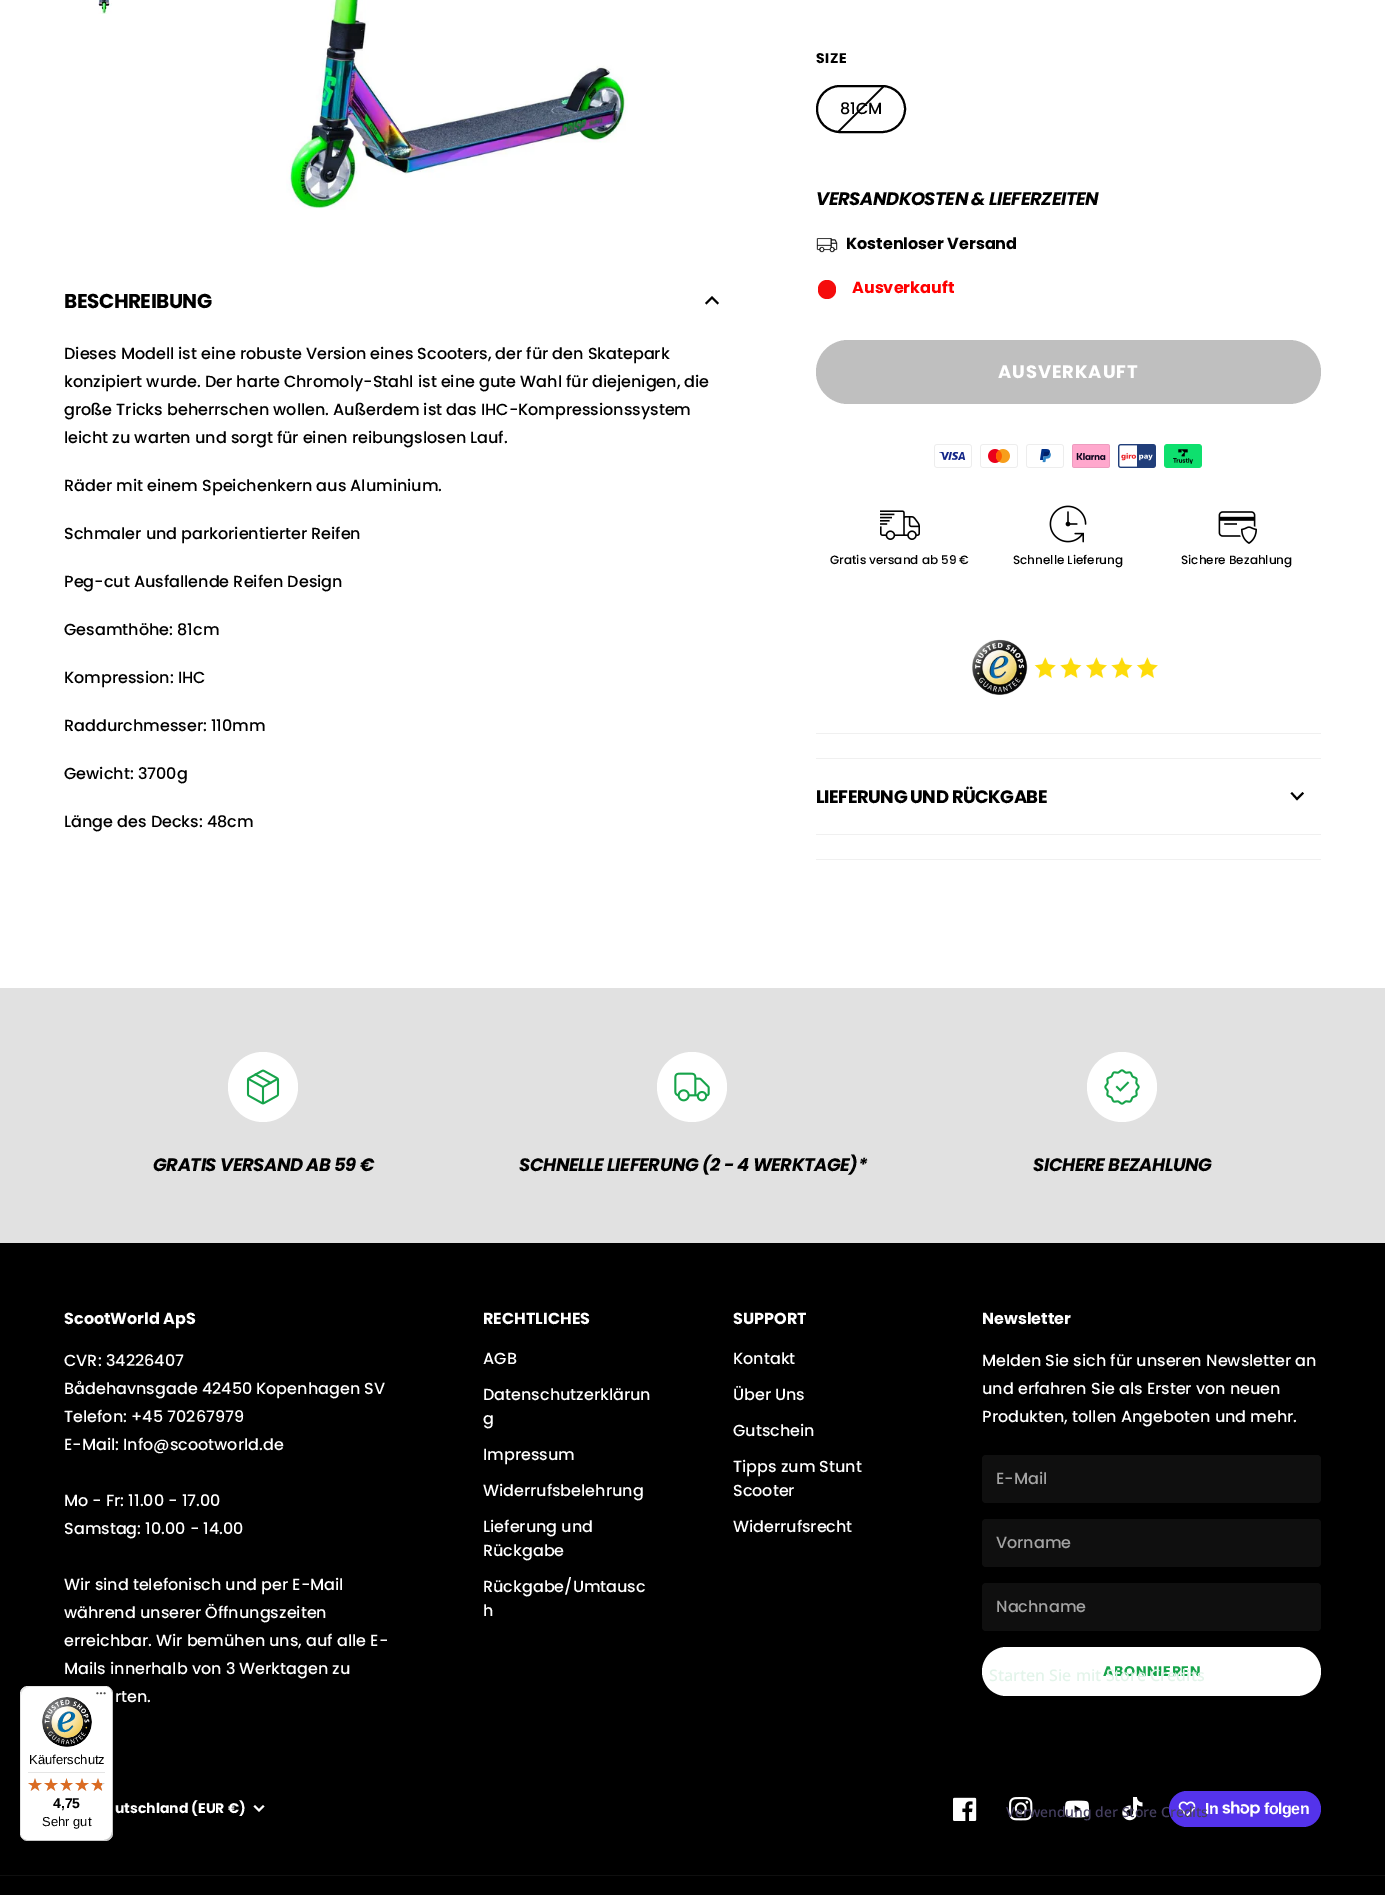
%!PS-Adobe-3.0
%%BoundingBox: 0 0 1385 1895
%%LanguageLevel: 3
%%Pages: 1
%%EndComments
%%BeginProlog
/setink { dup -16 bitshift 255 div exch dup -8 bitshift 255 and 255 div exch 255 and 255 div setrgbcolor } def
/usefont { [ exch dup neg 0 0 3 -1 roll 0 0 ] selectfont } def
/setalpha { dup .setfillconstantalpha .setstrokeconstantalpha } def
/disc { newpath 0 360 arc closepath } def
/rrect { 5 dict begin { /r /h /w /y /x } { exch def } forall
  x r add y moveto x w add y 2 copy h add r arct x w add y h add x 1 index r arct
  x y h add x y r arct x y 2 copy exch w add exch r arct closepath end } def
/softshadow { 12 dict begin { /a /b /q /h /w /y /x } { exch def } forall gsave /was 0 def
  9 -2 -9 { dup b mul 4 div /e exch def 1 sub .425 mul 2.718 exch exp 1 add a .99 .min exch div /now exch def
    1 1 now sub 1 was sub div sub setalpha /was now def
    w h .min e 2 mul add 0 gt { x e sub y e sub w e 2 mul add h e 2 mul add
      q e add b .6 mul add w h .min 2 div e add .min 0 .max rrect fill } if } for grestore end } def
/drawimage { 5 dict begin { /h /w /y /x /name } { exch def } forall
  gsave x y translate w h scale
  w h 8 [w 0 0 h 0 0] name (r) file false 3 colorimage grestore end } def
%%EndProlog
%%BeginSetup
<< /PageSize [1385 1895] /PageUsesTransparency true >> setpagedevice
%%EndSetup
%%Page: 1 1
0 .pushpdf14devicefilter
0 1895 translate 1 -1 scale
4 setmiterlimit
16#FFFFFF setink
0 0 1385 1895 rectfill
/Poppins-Bold 20 usefont
16#000000 setink
64 308 moveto -0.5 0 (BESCHREIBUNG) ashow
1.9 setlinewidth
2 setlinecap
717.5 303 moveto 712 297.5 lineto 706.5 303 lineto stroke
/Poppins-Medium 16 usefont
[
    [(Dieses Modell ist eine robuste Version eines Scooters, der für den Skatepark) 64 359]
    [(konzipiert wurde. Der harte Chromoly-Stahl ist eine gute Wahl für diejenigen, die) 64 387]
    [(große Tricks beherrschen wollen. Außerdem ist das IHC-Kompressionssystem) 64 415]
    [(leicht zu warten und sorgt für einen reibungslosen Lauf.) 64 443]
    [(Räder mit einem Speichenkern aus Aluminium.) 64 491]
    [(Schmaler und parkorientierter Reifen) 64 539]
    [(Peg-cut Ausfallende Reifen Design) 64 587]
    [(Gesamthöhe: 81cm) 64 635]
    [(Kompression: IHC) 64 683]
    [(Raddurchmesser: 110mm) 64 731]
    [(Gewicht: 3700g) 64 779]
    [(Länge des Decks: 48cm) 64 827]
] { aload pop moveto show } forall
(img1.raw) 98 0 14 14 drawimage
(img2.raw) 286 0 342 210 drawimage
/Poppins-Bold 14 usefont
816 63 moveto 0.5 0 (SIZE) ashow
gsave
816 85 90 48 24 rrect clip newpath
1.6 setlinewidth
0 setlinecap
837 133 moveto 885 85 lineto stroke
grestore
2 setlinewidth
0 setlinecap
817 86 88 46 23 rrect stroke
/Poppins-Medium 16 usefont
840 114 moveto (81CM) show
/Poppins-BoldItalic 18 usefont
816 205 moveto -0.45 0 (VERSANDKOSTEN & LIEFERZEITEN) ashow
(img3.raw) 816 238 22 15 drawimage
/Poppins-Bold 16 usefont
846 249 moveto (Kostenloser Versand) show
16#F50C0C setink
818 280 18 19 9 rrect fill
16#FF0000 setink
852 293 moveto (Ausverkauft) show
16#BFBFBF setink
816 340 505 64 32 rrect fill
/Poppins-Bold 18 usefont
16#FFFFFF setink
998 378 moveto 0.9 0 (AUSVERKAUFT) ashow
(img4.raw) 934 444 38 24 drawimage
(img5.raw) 980 444 38 24 drawimage
(img6.raw) 1026 444 38 24 drawimage
(img7.raw) 1072 444 38 24 drawimage
(img8.raw) 1118 444 38 24 drawimage
(img9.raw) 1164 444 38 24 drawimage
(img10.raw) 880 510 40 30 drawimage
/Poppins-Medium 12 usefont
16#000000 setink
830 564 moveto (Gratis versand ab 59 €) show
(img11.raw) 1049 505 38 38 drawimage
1013 564 moveto (Schnelle Lieferung) show
(img12.raw) 1218 511 39 33 drawimage
1181 564 moveto (Sichere Bezahlung) show
(img13.raw) 972 639 186 56 drawimage
[
    [816 733 505 1 16#F0F0F0]
    [816 758 505 1 16#F0F0F0]
    [816 834 505 1 16#F0F0F0]
] { aload pop setink rectfill } forall
/Poppins-Bold 18 usefont
16#000000 setink
816 803 moveto -0.45 0 (LIEFERUNG UND RÜCKGABE) ashow
1.9 setlinewidth
2 setlinecap
1292 793.5 moveto 1297 799 lineto 1302.5 793.5 lineto stroke
16#F0F0F0 setink
816 859 505 1 rectfill
16#E1E1E1 setink
0 988 1385 255 rectfill
16#FFFFFF setink
263 1087 35 disc fill
(img14.raw) 246 1069 34 36 drawimage
/Poppins-BoldItalic 18 usefont
16#000000 setink
153 1171 moveto -0.45 0 (GRATIS VERSAND AB 59 €) ashow
16#FFFFFF setink
692 1087 35 disc fill
(img15.raw) 674 1072 36 30 drawimage
16#000000 setink
519 1171 moveto -0.45 0 (SCHNELLE LIEFERUNG \(2 - 4 WERKTAGE\)*) ashow
16#FFFFFF setink
1122 1087 35 disc fill
(img16.raw) 1104 1069 36 36 drawimage
16#000000 setink
1033 1171 moveto -0.45 0 (SICHERE BEZAHLUNG) ashow
0 1243 1385 652 rectfill
/Poppins-Bold 16 usefont
16#FFFFFF setink
64 1324 moveto (ScootWorld ApS) show
/Poppins-Medium 16 usefont
[
    [(CVR: 34226407) 64 1366]
    [(Bådehavnsgade 42450 Kopenhagen SV) 64 1394]
    [(Telefon: +45 70267979) 64 1422]
    [(E-Mail: Info@scootworld.de) 64 1450]
    [(Mo - Fr: 11.00 - 17.00) 64 1506]
    [(Samstag: 10.00 - 14.00) 64 1534]
    [(Wir sind telefonisch und per E-Mail) 64 1590]
    [(während unserer Öffnungszeiten) 64 1618]
    [(erreichbar. Wir bemühen uns, auf alle E-) 64 1646]
    [(Mails innerhalb von 3 Werktagen zu) 64 1674]
    [(rten.) 115 1702]
] { aload pop moveto show } forall
/Poppins-Bold 16 usefont
483 1324 moveto (RECHTLICHES) show
/Poppins-Medium 16 usefont
[
    [(AGB) 483 1364]
    [(Datenschutzerklärun) 483 1400]
    [(g) 483 1424]
    [(Impressum) 483 1460]
    [(Widerrufsbelehrung) 483 1496]
    [(Lieferung und) 483 1532]
    [(Rückgabe) 483 1556]
    [(Rückgabe/Umtausc) 483 1592]
    [(h) 483 1616]
] { aload pop moveto show } forall
/Poppins-Bold 16 usefont
733 1324 moveto (SUPPORT) show
/Poppins-Medium 16 usefont
[
    [(Kontakt) 733 1364]
    [(Über Uns) 733 1400]
    [(Gutschein) 733 1436]
    [(Tipps zum Stunt) 733 1472]
    [(Scooter) 733 1496]
    [(Widerrufsrecht) 733 1532]
] { aload pop moveto show } forall
/Poppins-Bold 16 usefont
982 1324 moveto (Newsletter) show
/Poppins-Medium 16 usefont
[
    [(Melden Sie sich für unseren Newsletter an) 982 1366]
    [(und erfahren Sie als Erster von neuen) 982 1394]
    [(Produkten, tollen Angeboten und mehr.) 982 1422]
] { aload pop moveto show } forall
16#0F0F0F setink
982 1455 339 48 4 rrect fill
16#A3A3A3 setink
996 1484 moveto (E-Mail) show
16#0F0F0F setink
982 1519 339 48 4 rrect fill
16#A3A3A3 setink
996 1548 moveto (Vorname) show
16#0F0F0F setink
982 1583 339 48 4 rrect fill
16#A3A3A3 setink
996 1612 moveto (Nachname) show
16#FFFFFF setink
982 1647 339 49 24.5 rrect fill
/Poppins-Bold 14 usefont
16#16A34A setink
1103 1676 moveto 0.75 0 (ABONNIEREN) ashow
16#FFFFFF setink
115 1813 moveto (utschland \(EUR €\)) show
255 1806.5 moveto 259 1810.5 lineto 263 1806.5 lineto stroke
(img17.raw) 953 1797 24 24 drawimage
(img18.raw) 1009 1797 24 24 drawimage
(img19.raw) 1065 1800 24 18 drawimage
(img20.raw) 1122 1797 21 24 drawimage
16#5433EB setink
1169 1791 152 36 18 rrect fill
(img21.raw) 1178 1801 18 16 drawimage
/LiberationSans-Bold 16 usefont
16#FFFFFF setink
1205 1814 moveto -0.5 0 (In) ashow
(img22.raw) 1222 1801 38 16 drawimage
1264 1814 moveto -0.5 0 (folgen) ashow
16#0F0F0F setink
0 1875 1385 1 rectfill
16#000000 setink
23 1689 93 155 8 4 0.15 softshadow
16#FFFFFF setink
20 1686 93 155 8 rrect fill
0.1 setalpha
16#000000 setink
29 1687 moveto 106 1687 lineto 108 1687 110 1688 112 1690 curveto 110 1688 108 1686 105 1686 curveto 28 1686 lineto 24 1686 20 1690 20 1694 curveto 20 1833 lineto 20 1836 22 1838 24 1840 curveto 22 1838 21 1836 21 1834 curveto 21 1695 lineto 21 1691 25 1687 29 1687 curveto closepath fill
0.2 setalpha
21 1837 moveto 23 1839 25 1841 28 1841 curveto 105 1841 lineto 109 1841 113 1837 113 1833 curveto 113 1694 lineto 113 1691 111 1689 109 1687 curveto 111 1689 112 1691 112 1693 curveto 112 1832 lineto 112 1836 108 1840 104 1840 curveto 27 1840 lineto 25 1840 23 1839 21 1837 curveto closepath fill
16#323232 setink
22 1838 moveto 23 1840 26 1841 28 1841 curveto 105 1841 lineto 109 1841 113 1837 113 1833 curveto 113 1694 lineto 113 1692 112 1689 110 1688 curveto 111 1689 112 1691 112 1693 curveto 112 1832 lineto 112 1837 109 1840 104 1840 curveto 27 1840 lineto 25 1840 23 1839 22 1838 curveto closepath fill
0.3 setalpha
16#FFFFFF setink
112 1694 moveto 112 1689 109 1686 104 1686 curveto 105 1686 lineto 109 1686 113 1690 113 1694 curveto 113 1833 lineto 113 1837 109 1841 105 1841 curveto 28 1841 lineto 24 1841 20 1837 20 1833 curveto 20 1832 lineto 20 1837 23 1840 28 1840 curveto 104 1840 lineto 109 1840 112 1837 112 1832 curveto closepath fill
1 setalpha
(img23.raw) 96 1692 10 3 drawimage
(img24.raw) 42 1697 50 50 drawimage
/LiberationSans-Regular 13 usefont
16#000000 setink
29 1764 moveto (Käuferschutz) show
16#E5E5E5 setink
28 1772 77 1 rectfill
(img25.raw) 28 1778 14 13 drawimage
(img25.raw) 44 1778 14 13 drawimage
(img26.raw) 60 1778 13 13 drawimage
(img25.raw) 75 1778 14 13 drawimage
(img25.raw) 91 1778 14 13 drawimage
(img27.raw) 28 1778 14 13 drawimage
(img27.raw) 44 1778 14 13 drawimage
(img28.raw) 60 1778 13 13 drawimage
(img27.raw) 75 1778 14 13 drawimage
(img29.raw) 91 1778 11 13 drawimage
/LiberationSans-Bold 14 usefont
16#000000 setink
53 1808 moveto (4,75) show
/LiberationSans-Regular 13 usefont
42 1826 moveto (Sehr gut) show
/NotoSans-Medium 16 usefont
16#E3F4EA setink
989 1681 moveto (Starten Sie mit Store Credits) show
/NotoSans-Medium 14 usefont
16#464061 setink
1006 1817 moveto (Verwendung der Store Credits) show
.poppdf14devicefilter showpage
%%EOF
